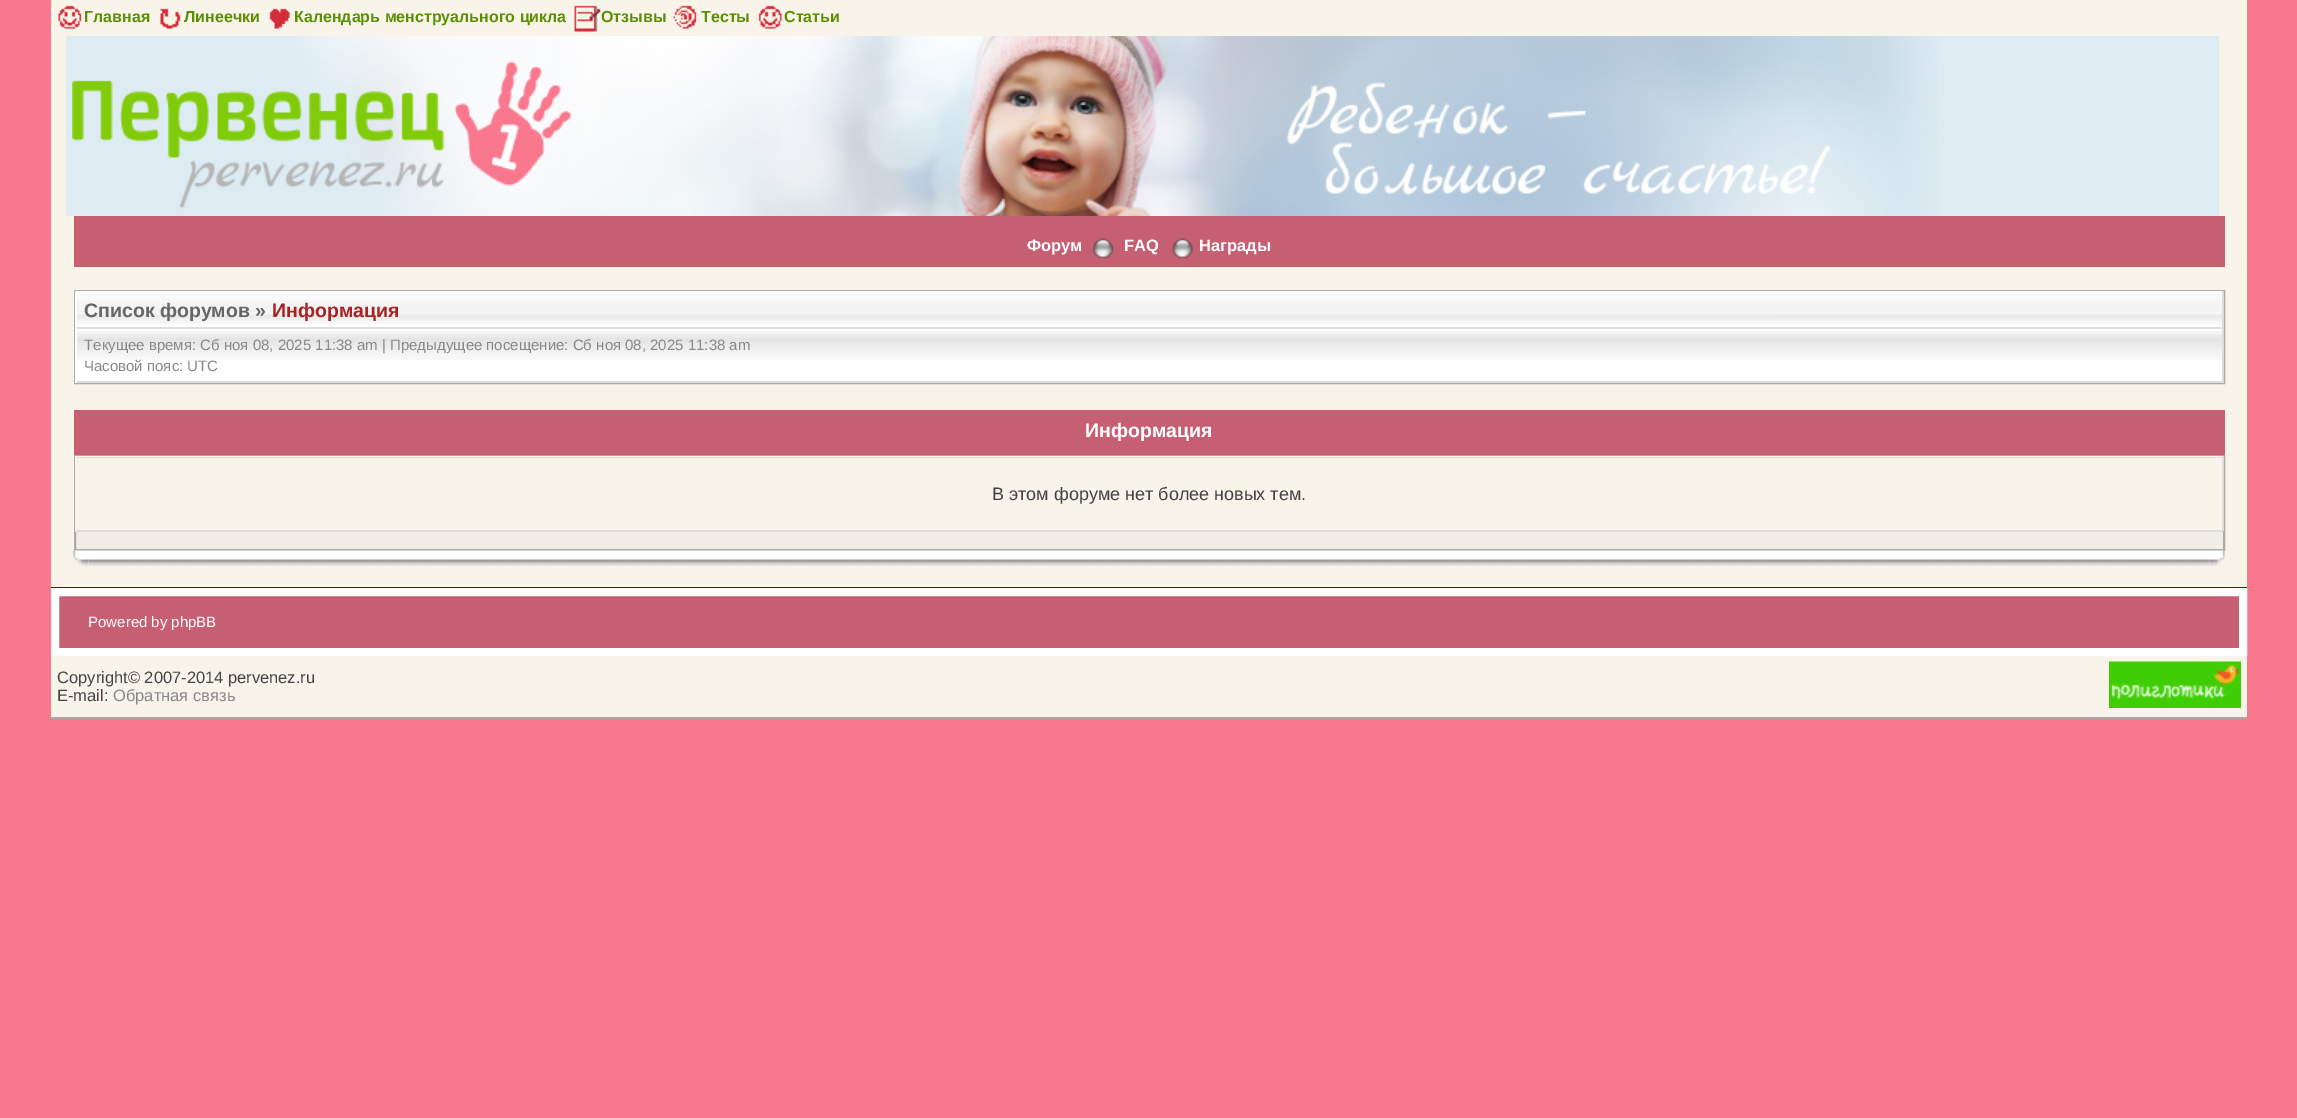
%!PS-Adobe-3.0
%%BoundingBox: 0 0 2297 1118
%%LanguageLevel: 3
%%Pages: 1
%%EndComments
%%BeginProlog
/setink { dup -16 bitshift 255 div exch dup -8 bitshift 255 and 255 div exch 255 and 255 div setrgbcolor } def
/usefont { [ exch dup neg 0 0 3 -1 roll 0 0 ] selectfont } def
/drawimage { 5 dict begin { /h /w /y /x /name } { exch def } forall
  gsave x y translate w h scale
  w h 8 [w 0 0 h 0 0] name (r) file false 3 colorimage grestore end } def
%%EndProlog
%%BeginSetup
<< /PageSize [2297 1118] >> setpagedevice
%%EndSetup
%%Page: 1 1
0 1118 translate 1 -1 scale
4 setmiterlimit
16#F9788E setink
0 0 2297 1118 rectfill
16#F8F4E9 setink
51 0 2196 717 rectfill
(img1.raw) 58 5 24 24 drawimage
/LiberationSans-Bold 16 usefont
16#599001 setink
84 22 moveto (Главная) show
(img2.raw) 160 8 21 21 drawimage
184 22 moveto (Линеечки) show
(img3.raw) 269 8 21 21 drawimage
294 22 moveto (Календарь менструального цикла) show
(img4.raw) 574 5 27 27 drawimage
601 22 moveto (Отзывы) show
(img5.raw) 673 5 24 24 drawimage
701 22 moveto (Тесты) show
(img6.raw) 758 5 24 24 drawimage
784 22 moveto (Статьи) show
16#DDECF3 setink
66 36 2153 180 rectfill
(img7.raw) 296 36 1643 180 drawimage
(img8.raw) 72 61 500 148 drawimage
16#C65F72 setink
74 216 2151 51 rectfill
/LiberationSans-Bold 16.5 usefont
16#FFFFFF setink
1027 251 moveto (Форум) show
(img9.raw) 1092 237 22 22 drawimage
1124 251 moveto (FAQ) show
(img10.raw) 1171 238 22 21 drawimage
1199 251 moveto (Награды) show
16#AAAAAA setink
2 setlinewidth
75 291 2149 92 rectstroke
(img11.raw) 77 293 2145 34 drawimage
[
    [75 291 2148 2 16#FFFFFF]
    [2222 291 2 38 16#DDDDDD]
    [75 327 2148 2 16#DDDDDD]
    [75 291 2 38 16#FFFFFF]
] { aload pop setink rectfill } forall
/LiberationSans-Bold 19.5 usefont
16#666666 setink
84 317 moveto (Список форумов ») show
16#AA2222 setink
272 317 moveto (Информация) show
16#FFFFFF setink
77 360 2145 21 rectfill
(img12.raw) 77 331 2145 29 drawimage
[
    [75 329 2148 2 16#FFFFFF]
    [2222 329 2 54 16#DDDDDD]
    [75 381 2148 2 16#DDDDDD]
    [75 329 2 54 16#FFFFFF]
] { aload pop setink rectfill } forall
/LiberationSans-Regular 15 usefont
16#888888 setink
84 350 moveto (Текущее время: Сб ноя 08, 2025 11:38 am | Предыдущее посещение: Сб ноя 08, 2025 11:38 am) show
84 371 moveto (Часовой пояс: UTC) show
16#C65F72 setink
74 410 2151 45 rectfill
/LiberationSans-Bold 19.5 usefont
16#FFFFFF setink
1085 437 moveto (Информация) show
16#F1EDE4 setink
76 532 2147 17 rectfill
16#AAAAAA setink
75 456 2149 94 rectstroke
[
    [77 456 2145 1 16#F8F4E9]
    [2222 456 2 75 16#DDDDDD]
    [75 530 2148 2 16#DDDDDD]
    [75 456 2 75 16#F8F4E9]
] { aload pop setink rectfill } forall
/LiberationSans-Regular 18 usefont
16#444444 setink
992 500 moveto (В этом форуме нет более новых тем.) show
(img13.raw) 73 550 16 17 drawimage
(img14.raw) 2209 550 16 17 drawimage
(img15.raw) 88 550 2122 17 drawimage
16#880000 setink
51 587 2196 1 rectfill
16#AAAAAA setink
51 717 2196 2 rectfill
16#C65F72 setink
55 592 moveto 2243 592 lineto 2243 652 lineto 55 652 lineto closepath gsave fill grestore
16#FFFFFF setink
8 setlinewidth
stroke
/LiberationSans-Regular 15 usefont
88 627 moveto (Powered by phpBB) show
/LiberationSans-Regular 16.5 usefont
16#444444 setink
57 683 moveto (Copyright© 2007-2014 pervenez.ru) show
57 701 moveto (E-mail:) show
16#888888 setink
113 701 moveto (Обратная связь) show
(img16.raw) 2109 661 132 47 drawimage
showpage
%%EOF
